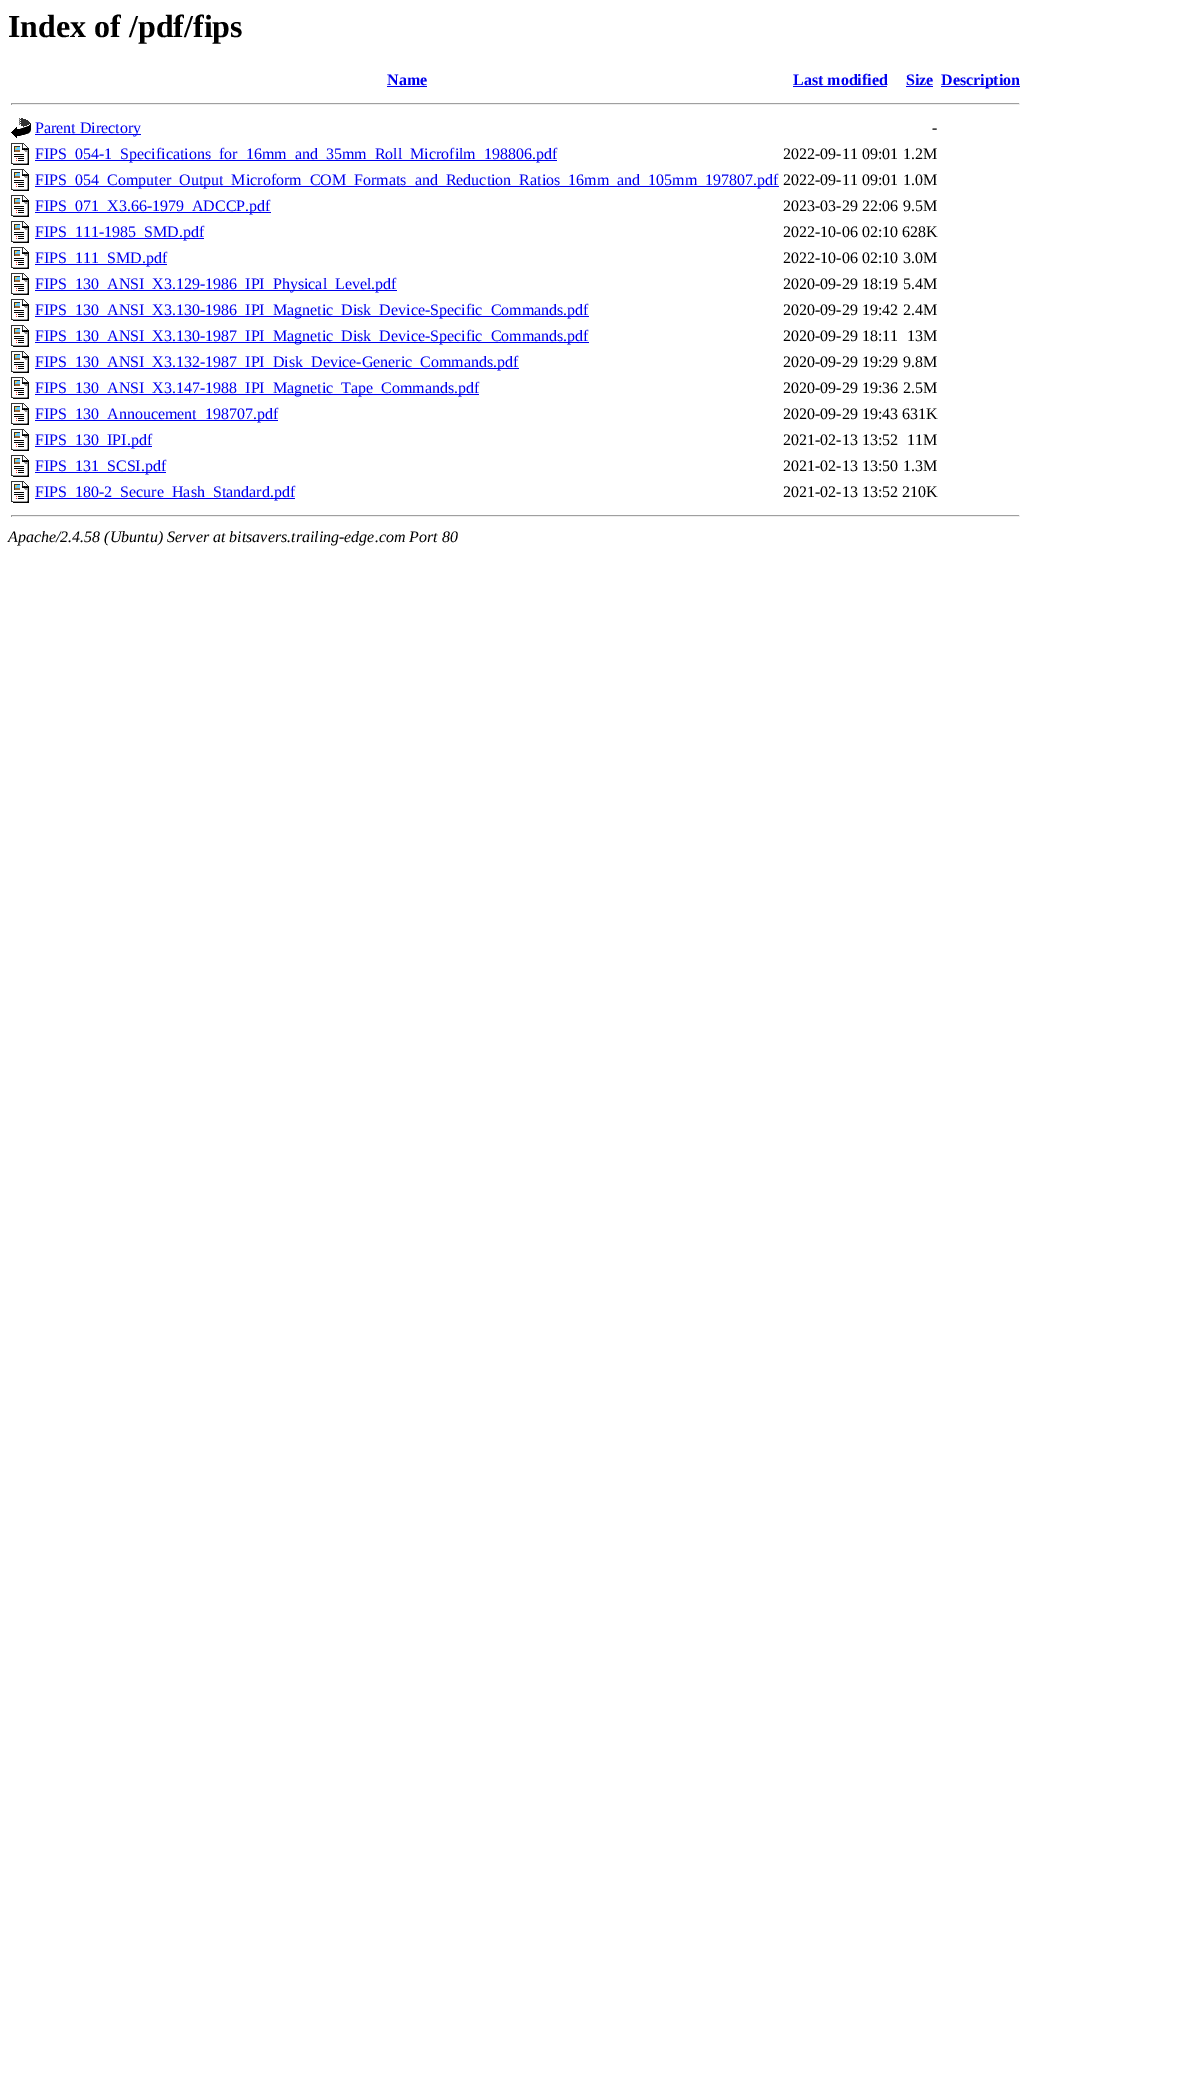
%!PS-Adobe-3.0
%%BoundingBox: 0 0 1178 2085
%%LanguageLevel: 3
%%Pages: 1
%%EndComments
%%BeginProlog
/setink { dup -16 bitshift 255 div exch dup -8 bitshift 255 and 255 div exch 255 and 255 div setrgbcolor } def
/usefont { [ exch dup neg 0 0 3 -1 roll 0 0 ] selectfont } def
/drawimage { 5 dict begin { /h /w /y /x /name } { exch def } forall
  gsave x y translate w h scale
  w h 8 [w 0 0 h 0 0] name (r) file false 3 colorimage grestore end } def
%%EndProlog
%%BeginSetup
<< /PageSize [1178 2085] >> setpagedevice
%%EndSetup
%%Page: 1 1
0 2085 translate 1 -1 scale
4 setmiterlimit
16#FFFFFF setink
0 0 1178 2085 rectfill
/LiberationSerif-Bold 32 usefont
16#000000 setink
8 37 moveto (Index of /pdf/fips) show
/LiberationSerif-Bold 16 usefont
16#0000EE setink
387 85 moveto (Name) show
387 86 40 1 rectfill
793 85 moveto (Last modified) show
793 86 94 1 rectfill
906 85 moveto (Size) show
906 86 27 1 rectfill
941 86 79 1 rectfill
941 85 moveto (Description) show
[
    [11 103 1009 1 16#9F9F9F]
    [1019 103 1 2 16#EEEEEE]
    [11 104 1009 1 16#EEEEEE]
    [11 103 1 2 16#9F9F9F]
] { aload pop setink rectfill } forall
(img1.raw) 11 118 20 20 drawimage
16#0000EE setink
35 134 106 1 rectfill
/LiberationSerif-Regular 16 usefont
35 133 moveto (Parent Directory) show
16#000000 setink
932 133 moveto (-) show
(img2.raw) 11 143 18 22 drawimage
16#0000EE setink
35 160 522 1 rectfill
35 159 moveto (FIPS_054-1_Specifications_for_16mm_and_35mm_Roll_Microfilm_198806.pdf) show
16#000000 setink
783 159 moveto (2022-09-11 09:01) show
903 159 moveto (1.2M) show
(img2.raw) 11 169 18 22 drawimage
16#0000EE setink
35 186 744 1 rectfill
35 185 moveto (FIPS_054_Computer_Output_Microform_COM_Formats_and_Reduction_Ratios_16mm_and_105mm_197807.pdf) show
16#000000 setink
783 185 moveto (2022-09-11 09:01) show
903 185 moveto (1.0M) show
(img2.raw) 11 195 18 22 drawimage
16#0000EE setink
35 212 236 1 rectfill
35 211 moveto (FIPS_071_X3.66-1979_ADCCP.pdf) show
16#000000 setink
783 211 moveto (2023-03-29 22:06) show
903 211 moveto (9.5M) show
(img2.raw) 11 221 18 22 drawimage
16#0000EE setink
35 238 169 1 rectfill
35 237 moveto (FIPS_111-1985_SMD.pdf) show
16#000000 setink
783 237 moveto (2022-10-06 02:10 628K) show
(img2.raw) 11 247 18 22 drawimage
16#0000EE setink
35 264 132 1 rectfill
35 263 moveto (FIPS_111_SMD.pdf) show
16#000000 setink
783 263 moveto (2022-10-06 02:10) show
903 263 moveto (3.0M) show
(img2.raw) 11 273 18 22 drawimage
16#0000EE setink
35 290 362 1 rectfill
35 289 moveto (FIPS_130_ANSI_X3.129-1986_IPI_Physical_Level.pdf) show
16#000000 setink
783 289 moveto (2020-09-29 18:19) show
903 289 moveto (5.4M) show
(img2.raw) 11 299 18 22 drawimage
16#0000EE setink
35 316 554 1 rectfill
35 315 moveto (FIPS_130_ANSI_X3.130-1986_IPI_Magnetic_Disk_Device-Specific_Commands.pdf) show
16#000000 setink
783 315 moveto (2020-09-29 19:42) show
903 315 moveto (2.4M) show
(img2.raw) 11 325 18 22 drawimage
16#0000EE setink
35 342 554 1 rectfill
35 341 moveto (FIPS_130_ANSI_X3.130-1987_IPI_Magnetic_Disk_Device-Specific_Commands.pdf) show
16#000000 setink
783 341 moveto (2020-09-29 18:11) show
907 341 moveto (13M) show
(img2.raw) 11 351 18 22 drawimage
16#0000EE setink
35 368 484 1 rectfill
35 367 moveto (FIPS_130_ANSI_X3.132-1987_IPI_Disk_Device-Generic_Commands.pdf) show
16#000000 setink
783 367 moveto (2020-09-29 19:29) show
903 367 moveto (9.8M) show
(img2.raw) 11 377 18 22 drawimage
16#0000EE setink
35 394 444 1 rectfill
35 393 moveto (FIPS_130_ANSI_X3.147-1988_IPI_Magnetic_Tape_Commands.pdf) show
16#000000 setink
783 393 moveto (2020-09-29 19:36) show
903 393 moveto (2.5M) show
(img2.raw) 11 403 18 22 drawimage
16#0000EE setink
35 420 243 1 rectfill
35 419 moveto (FIPS_130_Annoucement_198707.pdf) show
16#000000 setink
783 419 moveto (2020-09-29 19:43 631K) show
(img2.raw) 11 429 18 22 drawimage
16#0000EE setink
35 446 117 1 rectfill
35 445 moveto (FIPS_130_IPI.pdf) show
16#000000 setink
783 445 moveto (2021-02-13 13:52) show
907 445 moveto (11M) show
(img2.raw) 11 455 18 22 drawimage
16#0000EE setink
35 472 131 1 rectfill
35 471 moveto (FIPS_131_SCSI.pdf) show
16#000000 setink
783 471 moveto (2021-02-13 13:50) show
903 471 moveto (1.3M) show
(img2.raw) 11 481 18 22 drawimage
16#0000EE setink
35 498 260 1 rectfill
35 497 moveto (FIPS_180-2_Secure_Hash_Standard.pdf) show
16#000000 setink
783 497 moveto (2021-02-13 13:52 210K) show
[
    [11 515 1009 1 16#9F9F9F]
    [1019 515 1 2 16#EEEEEE]
    [11 516 1009 1 16#EEEEEE]
    [11 515 1 2 16#9F9F9F]
] { aload pop setink rectfill } forall
/LiberationSerif-Italic 16 usefont
16#000000 setink
8 542 moveto (Apache/2.4.58 \(Ubuntu\) Server at bitsavers.trailing-edge.com Port 80) show
showpage
%%EOF
